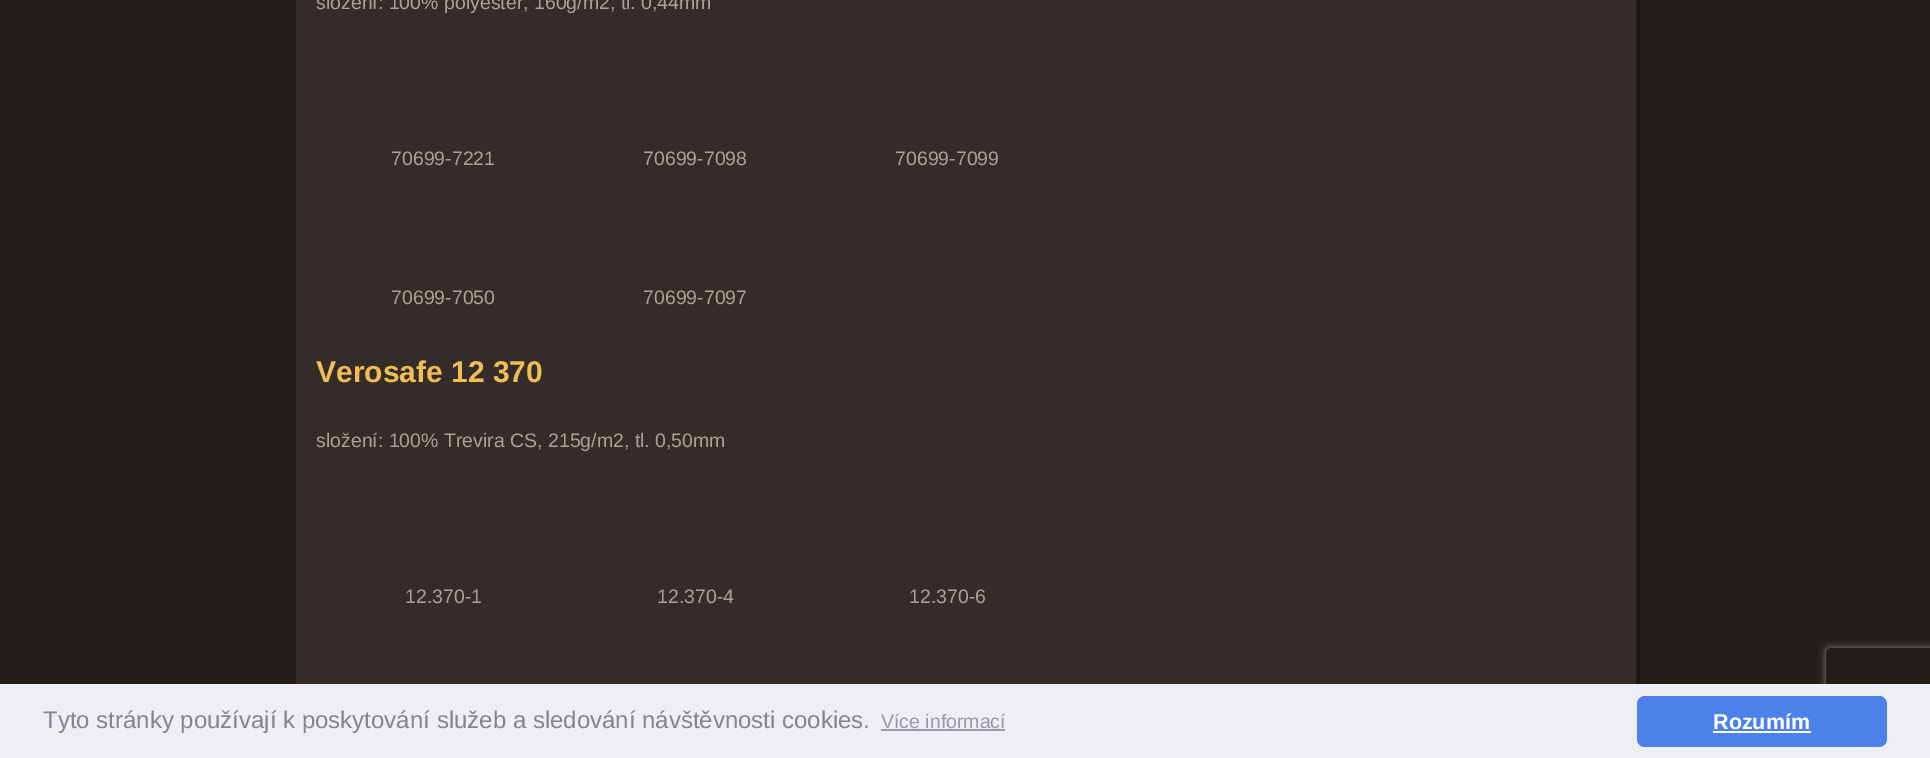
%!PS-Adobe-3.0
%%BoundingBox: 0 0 1930 758
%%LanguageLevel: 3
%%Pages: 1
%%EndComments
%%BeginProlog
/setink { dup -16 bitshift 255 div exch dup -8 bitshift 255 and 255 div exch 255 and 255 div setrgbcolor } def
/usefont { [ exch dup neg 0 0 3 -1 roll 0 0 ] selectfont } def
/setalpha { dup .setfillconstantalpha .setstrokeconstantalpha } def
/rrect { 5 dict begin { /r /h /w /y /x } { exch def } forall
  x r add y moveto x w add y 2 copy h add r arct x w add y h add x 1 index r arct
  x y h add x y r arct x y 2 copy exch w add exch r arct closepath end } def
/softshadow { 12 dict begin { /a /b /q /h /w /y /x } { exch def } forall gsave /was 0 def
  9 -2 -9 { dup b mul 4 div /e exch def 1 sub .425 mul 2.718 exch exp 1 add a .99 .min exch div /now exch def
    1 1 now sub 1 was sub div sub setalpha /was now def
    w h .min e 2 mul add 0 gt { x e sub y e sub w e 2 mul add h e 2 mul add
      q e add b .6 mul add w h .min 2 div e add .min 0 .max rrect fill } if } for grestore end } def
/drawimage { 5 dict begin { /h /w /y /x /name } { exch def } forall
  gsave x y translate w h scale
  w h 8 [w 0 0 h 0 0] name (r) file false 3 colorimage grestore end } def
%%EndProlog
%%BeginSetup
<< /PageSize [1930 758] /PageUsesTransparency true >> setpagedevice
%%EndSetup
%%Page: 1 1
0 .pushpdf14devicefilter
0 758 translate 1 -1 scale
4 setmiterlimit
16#221D1B setink
0 0 1930 758 rectfill
(img1.raw) 294 0 33 684 drawimage
16#332C28 setink
327 0 1278 684 rectfill
/LiberationSans-Regular 19.5 usefont
16#AEA098 setink
[
    [(složení: 100% polyester, 160g/m2, tl. 0,44mm) 316 9]
    [(70699-7221) 391 165]
    [(70699-7098) 643 165]
    [(70699-7099) 895 165]
    [(70699-7050) 391 304]
    [(70699-7097) 643 304]
] { aload pop moveto show } forall
/LiberationSans-Bold 30 usefont
16#F2BE54 setink
316 382 moveto (Verosafe 12 370) show
/LiberationSans-Regular 19.5 usefont
16#AEA098 setink
[
    [(složení: 100% Trevira CS, 215g/m2, tl. 0,50mm) 316 447]
    [(12.370-1) 405 603]
    [(12.370-4) 657 603]
    [(12.370-6) 909 603]
] { aload pop moveto show } forall
(img2.raw) 1605 0 35 684 drawimage
gsave
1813 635 moveto 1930 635 lineto 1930 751 lineto 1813 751 lineto closepath 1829 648 moveto 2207 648 lineto 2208.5 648 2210 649.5 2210 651 curveto 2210 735 lineto 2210 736.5 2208.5 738 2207 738 curveto 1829 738 lineto 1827.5 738 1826 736.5 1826 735 curveto 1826 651 lineto 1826 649.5 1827.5 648 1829 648 curveto closepath eoclip newpath
16#808080 setink
1826 648 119 90 3 4 1 softshadow
grestore
16#EDEFF5 setink
0 684 1930 74 rectfill
/LiberationSans-Regular 24 usefont
16#838391 setink
43 728 moveto (Tyto stránky používají k poskytování služeb a sledování návštěvnosti cookies.) show
/LiberationSans-Regular 19.5 usefont
16#9899A5 setink
881 728 moveto (Více informací) show
881 729 124 2 rectfill
16#4B81E8 setink
1637 696 250 51 8 rrect fill
/LiberationSans-Bold 21.5 usefont
16#FFFFFF setink
1713 729 moveto (Rozumím) show
1713 731 98 2 rectfill
.poppdf14devicefilter showpage
%%EOF
